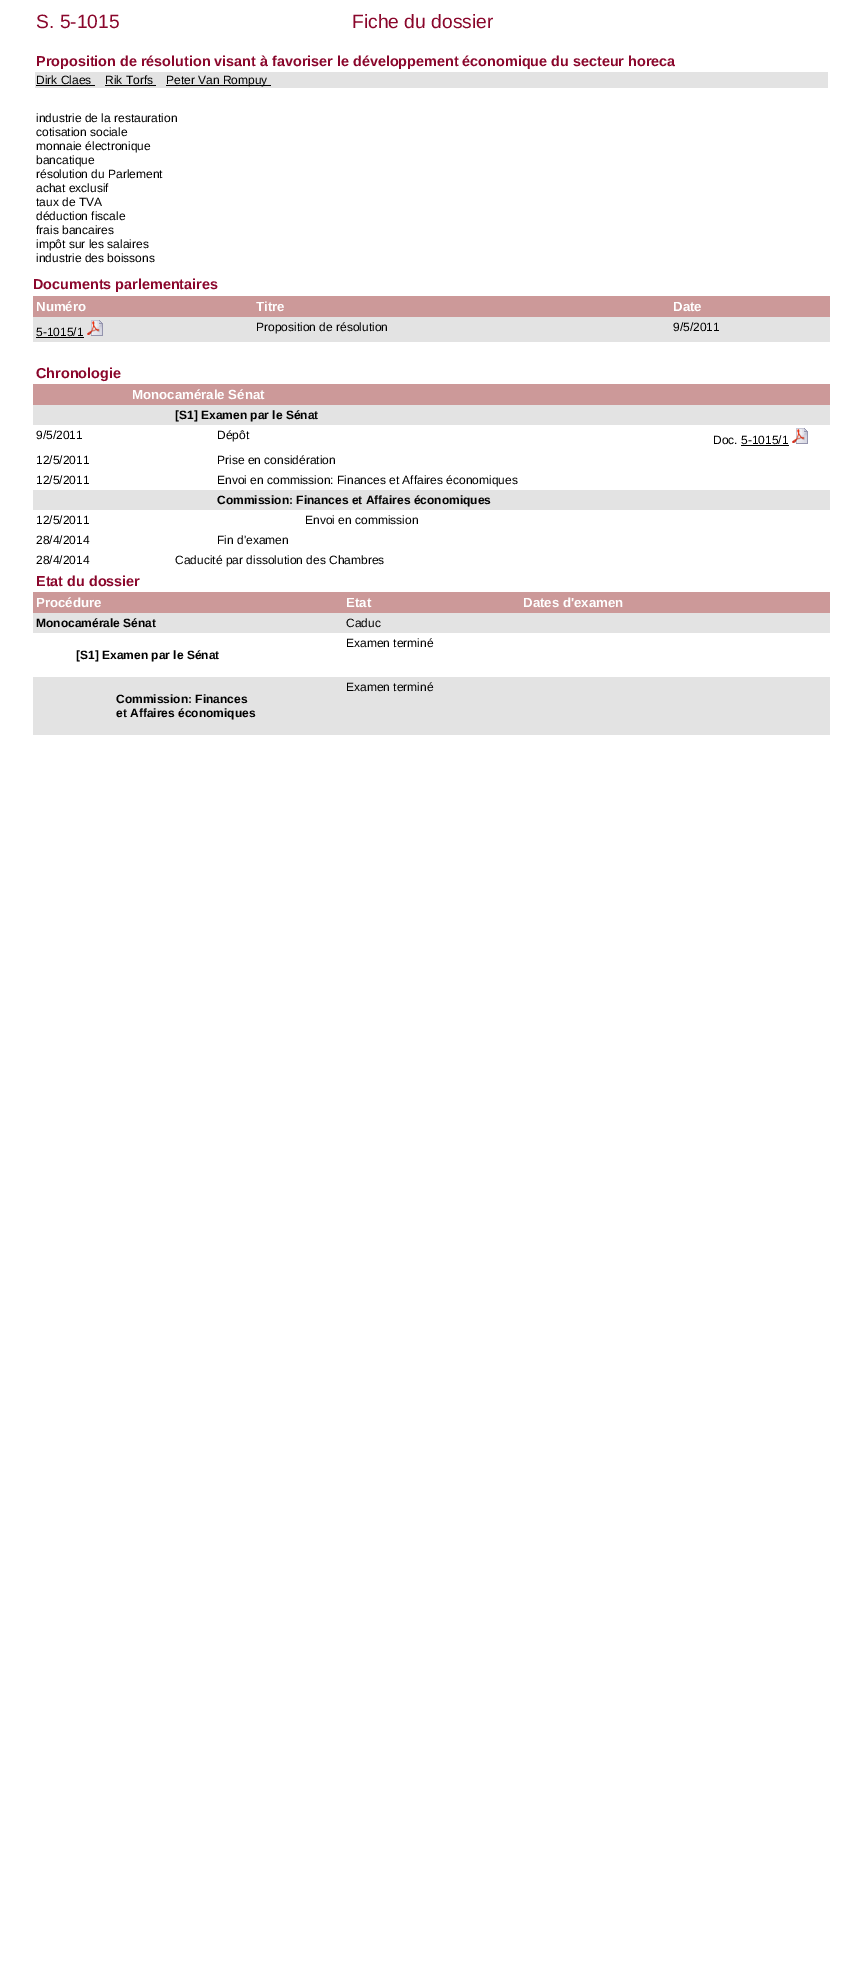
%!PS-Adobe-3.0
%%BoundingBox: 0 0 863 1967
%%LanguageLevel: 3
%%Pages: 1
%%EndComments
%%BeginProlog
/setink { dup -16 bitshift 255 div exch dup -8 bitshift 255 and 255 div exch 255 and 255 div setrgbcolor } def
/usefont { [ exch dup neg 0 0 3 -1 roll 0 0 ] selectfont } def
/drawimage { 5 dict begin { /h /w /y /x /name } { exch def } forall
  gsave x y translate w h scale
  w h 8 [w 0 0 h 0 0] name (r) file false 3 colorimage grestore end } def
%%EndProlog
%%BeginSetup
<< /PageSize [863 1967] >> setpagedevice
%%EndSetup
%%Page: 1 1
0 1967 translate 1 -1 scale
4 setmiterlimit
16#FFFFFF setink
0 0 863 1967 rectfill
/LiberationSans-Regular 19.25 usefont
16#8A062B setink
36 28 moveto (S. 5-1015) show
352 28 moveto (Fiche du dossier) show
/LiberationSans-Bold 14.4 usefont
36 66 moveto (Proposition de résolution visant à favoriser le développement économique du secteur horeca) show
16#E3E3E3 setink
35 72 793 16 rectfill
/LiberationSans-Regular 12 usefont
16#000000 setink
36 84 moveto (Dirk Claes) show
36 85 59 1 rectfill
105 84 moveto (Rik Torfs) show
105 85 51 1 rectfill
166 85 105 1 rectfill
[
    [(Peter Van Rompuy) 166 84]
    [(industrie de la restauration) 36 122]
    [(cotisation sociale) 36 136]
    [(monnaie électronique) 36 150]
    [(bancatique) 36 164]
    [(résolution du Parlement) 36 178]
    [(achat exclusif) 36 192]
    [(taux de TVA) 36 206]
    [(déduction fiscale) 36 220]
    [(frais bancaires) 36 234]
    [(impôt sur les salaires) 36 248]
    [(industrie des boissons) 36 262]
] { aload pop moveto show } forall
/LiberationSans-Bold 14.4 usefont
16#8A062B setink
33 289 moveto (Documents parlementaires) show
16#CC9999 setink
33 296 797 21 rectfill
/LiberationSans-Bold 13.25 usefont
16#FFFFFF setink
[
    [(Numéro) 36 311]
    [(Titre) 256 311]
    [(Date) 673 311]
] { aload pop moveto show } forall
16#E3E3E3 setink
33 317 797 25 rectfill
/LiberationSans-Regular 12 usefont
16#000000 setink
36 336 moveto (5-1015/1) show
36 337 48 1 rectfill
(img1.raw) 87 320 16 16 drawimage
256 331 moveto (Proposition de résolution) show
673 331 moveto (9/5/2011) show
/LiberationSans-Bold 14.4 usefont
16#8A062B setink
36 378 moveto (Chronologie) show
16#CC9999 setink
33 384 797 21 rectfill
/LiberationSans-Bold 13.25 usefont
16#FFFFFF setink
132 399 moveto (Monocamérale Sénat) show
16#E3E3E3 setink
33 405 797 20 rectfill
/LiberationSans-Bold 12 usefont
16#000000 setink
175 419 moveto ([S1] Examen par le Sénat) show
/LiberationSans-Regular 12 usefont
[
    [(9/5/2011) 36 439]
    [(Dépôt) 217 439]
    [(Doc. 5-1015/1) 713 444]
] { aload pop moveto show } forall
(img2.raw) 792 428 16 16 drawimage
741 445 48 1 rectfill
[
    [(12/5/2011) 36 464]
    [(Prise en considération) 217 464]
    [(12/5/2011) 36 484]
    [(Envoi en commission: Finances et Affaires économiques) 217 484]
] { aload pop moveto show } forall
16#E3E3E3 setink
33 490 797 20 rectfill
/LiberationSans-Bold 12 usefont
16#000000 setink
217 504 moveto (Commission: Finances et Affaires économiques) show
/LiberationSans-Regular 12 usefont
[
    [(12/5/2011) 36 524]
    [(Envoi en commission) 305 524]
    [(28/4/2014) 36 544]
    [(Fin d'examen) 217 544]
    [(28/4/2014) 36 564]
    [(Caducité par dissolution des Chambres) 175 564]
] { aload pop moveto show } forall
/LiberationSans-Bold 14.4 usefont
16#8A062B setink
36 586 moveto (Etat du dossier) show
16#CC9999 setink
33 592 797 21 rectfill
/LiberationSans-Bold 13.25 usefont
16#FFFFFF setink
[
    [(Procédure) 36 607]
    [(Etat) 346 607]
    [(Dates d'examen) 523 607]
] { aload pop moveto show } forall
16#E3E3E3 setink
33 613 797 20 rectfill
/LiberationSans-Bold 12 usefont
16#000000 setink
36 627 moveto (Monocamérale Sénat) show
/LiberationSans-Regular 12 usefont
346 627 moveto (Caduc) show
346 647 moveto (Examen terminé) show
/LiberationSans-Bold 12 usefont
76 659 moveto ([S1] Examen par le Sénat) show
16#E3E3E3 setink
33 677 797 58 rectfill
/LiberationSans-Regular 12 usefont
16#000000 setink
346 691 moveto (Examen terminé) show
/LiberationSans-Bold 12 usefont
116 703 moveto (Commission: Finances) show
116 717 moveto (et Affaires économiques) show
showpage
%%EOF
